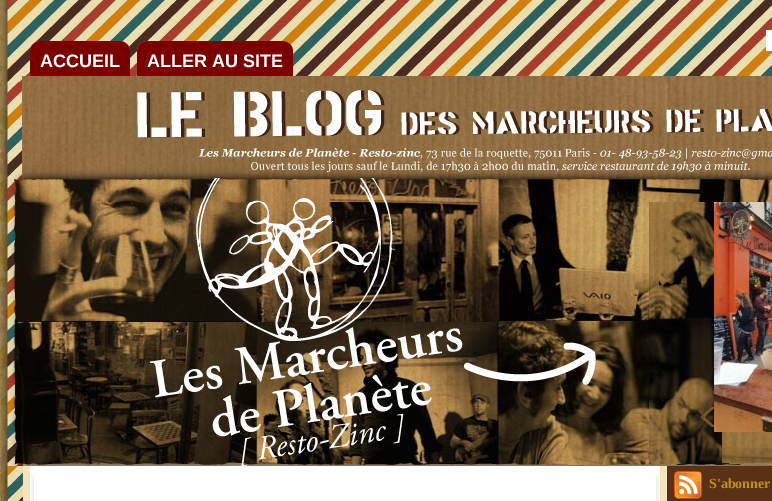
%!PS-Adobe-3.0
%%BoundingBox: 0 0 772 501
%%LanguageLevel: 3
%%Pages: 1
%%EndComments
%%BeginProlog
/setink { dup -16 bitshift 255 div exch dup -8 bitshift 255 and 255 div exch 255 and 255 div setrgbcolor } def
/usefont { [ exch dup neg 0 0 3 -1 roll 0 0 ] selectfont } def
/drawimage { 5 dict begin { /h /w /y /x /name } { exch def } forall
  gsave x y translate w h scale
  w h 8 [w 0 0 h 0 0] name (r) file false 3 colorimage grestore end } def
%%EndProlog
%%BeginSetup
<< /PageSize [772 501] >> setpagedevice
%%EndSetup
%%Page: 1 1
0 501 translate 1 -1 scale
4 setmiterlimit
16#FFFFFF setink
0 0 772 501 rectfill
(img1.raw) 0 0 772 82 drawimage
(img2.raw) 30 41 15 35 drawimage
(img3.raw) 45 41 85 35 drawimage
/LiberationSans-Bold 18 usefont
40 67 moveto (ACCUEIL) show
(img4.raw) 137 41 15 35 drawimage
(img5.raw) 152 41 141 35 drawimage
147 67 moveto (ALLER AU SITE) show
(img6.raw) 0 82 772 120 drawimage
(img7.raw) 0 202 772 264 drawimage
(img8.raw) 701 407 13 20 drawimage
(img9.raw) 714 202 58 230 drawimage
(img10.raw) 0 466 667 35 drawimage
(img11.raw) 30 466 630 35 drawimage
(img12.raw) 31 466 628 12 drawimage
16#5A3017 setink
667 466 105 35 rectfill
(img13.raw) 674 471 28 28 drawimage
/LiberationSerif-Bold 14 usefont
16#C19409 setink
709 488 moveto (S'abonner) show
showpage
%%EOF
